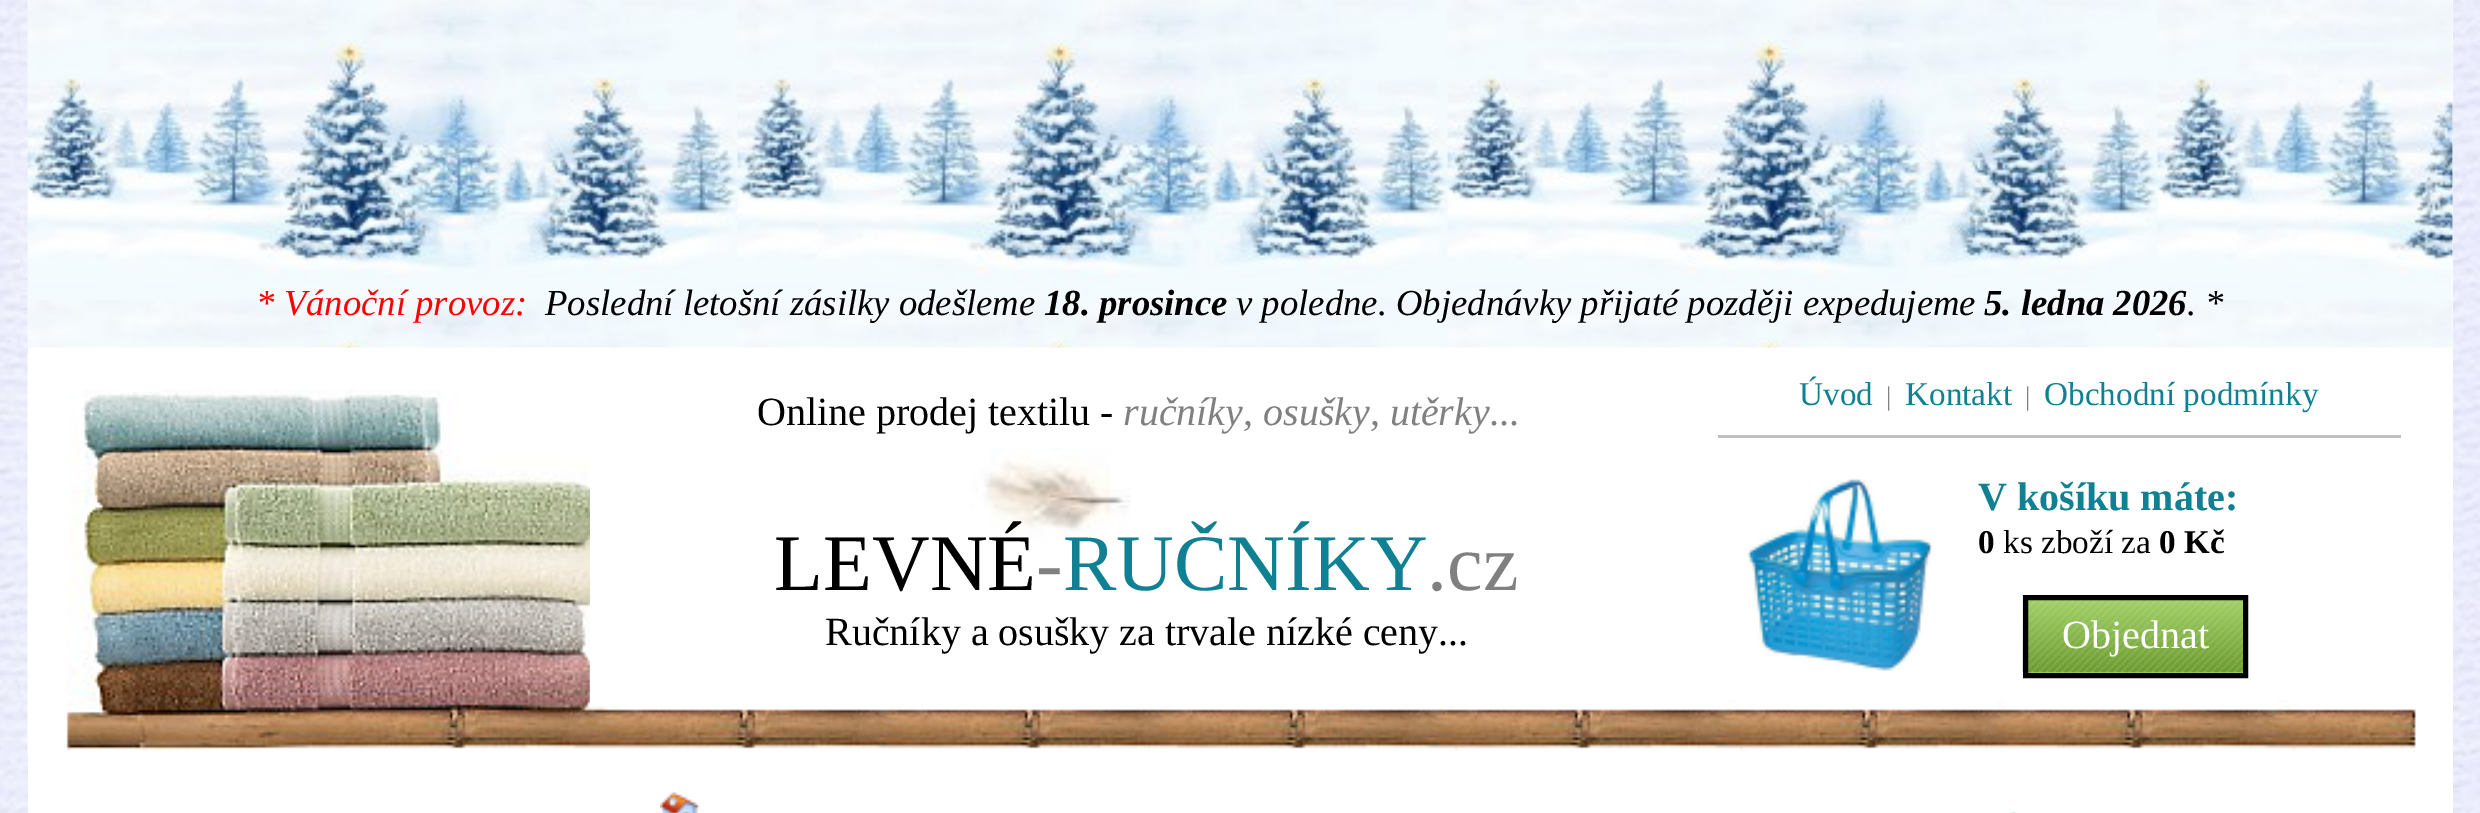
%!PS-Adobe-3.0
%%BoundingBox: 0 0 2480 813
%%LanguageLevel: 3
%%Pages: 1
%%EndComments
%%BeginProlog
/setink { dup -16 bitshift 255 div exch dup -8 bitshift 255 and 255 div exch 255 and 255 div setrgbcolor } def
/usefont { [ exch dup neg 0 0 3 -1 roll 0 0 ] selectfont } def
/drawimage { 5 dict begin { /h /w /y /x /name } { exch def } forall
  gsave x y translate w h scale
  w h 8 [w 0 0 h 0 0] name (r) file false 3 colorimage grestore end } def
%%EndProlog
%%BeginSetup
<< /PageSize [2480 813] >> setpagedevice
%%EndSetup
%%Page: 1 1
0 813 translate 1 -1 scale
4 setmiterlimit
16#FFFFFF setink
0 0 2480 813 rectfill
(img1.raw) 0 0 2480 813 drawimage
28 0 2425 355 rectfill
(img2.raw) 27 0 2426 348 drawimage
/LiberationSerif-Italic 36.7 usefont
16#FF0000 setink
256 315 moveto (* Vánoční provoz:) show
16#000000 setink
545 315 moveto (Poslední letošní zásilky odešleme) show
/LiberationSerif-BoldItalic 36.7 usefont
1044 315 moveto (18. prosince) show
/LiberationSerif-Italic 36.7 usefont
1236 315 moveto (v poledne. Objednávky přijaté později expedujeme) show
/LiberationSerif-BoldItalic 36.7 usefont
1984 315 moveto (5. ledna 2026) show
/LiberationSerif-Italic 36.7 usefont
2187 315 moveto (. *) show
16#FFFFFF setink
2416 355 37 400 rectfill
(img3.raw) 27 355 2389 400 drawimage
(img4.raw) 590 448 860 257 drawimage
/LiberationSerif-Regular 40 usefont
16#000000 setink
757 425 moveto (Online prodej textilu -) show
/LiberationSerif-Italic 40 usefont
16#808080 setink
1123 425 moveto (ručníky, osušky, utěrky...) show
/LiberationSerif-Regular 80 usefont
16#000000 setink
774 590 moveto (LEVNÉ) show
16#808080 setink
1036 590 moveto (-) show
16#108093 setink
1063 590 moveto (RUČNÍKY) show
16#808080 setink
1427 590 moveto (.cz) show
/LiberationSerif-Regular 40 usefont
16#000000 setink
825 645 moveto (Ručníky a osušky za trvale nízké ceny...) show
/LiberationSerif-Regular 33.25 usefont
16#108093 setink
1799 405 moveto (Úvod) show
/LiberationSerif-Regular 27 usefont
16#808080 setink
1886 405 moveto (|) show
/LiberationSerif-Regular 33.25 usefont
16#108093 setink
1905 405 moveto (Kontakt) show
/LiberationSerif-Regular 27 usefont
16#808080 setink
2025 405 moveto (|) show
/LiberationSerif-Regular 33.25 usefont
16#108093 setink
2044 405 moveto (Obchodní podmínky) show
16#C0C0C0 setink
1718 435 683 3 rectfill
(img5.raw) 1747 479 186 192 drawimage
/LiberationSerif-Bold 40 usefont
16#108093 setink
1978 510 moveto (V košíku máte:) show
/LiberationSerif-Bold 33.25 usefont
16#000000 setink
1978 553 moveto (0) show
/LiberationSerif-Regular 33.25 usefont
2003 553 moveto (ks zboží za) show
/LiberationSerif-Bold 33.25 usefont
2159 553 moveto (0 Kč) show
16#99DD44 setink
2028 600 215 73 rectfill
(img6.raw) 2022 595 221 83 drawimage
16#000000 setink
5 setlinewidth
2025.5 597.5 220 78 rectstroke
/LiberationSerif-Regular 40 usefont
16#FFFFFF setink
2062 648 moveto (Objednat) show
28 755 2425 58 rectfill
(img7.raw) 660 792 41 21 drawimage
(img8.raw) 2009 812 9 1 drawimage
showpage
%%EOF
